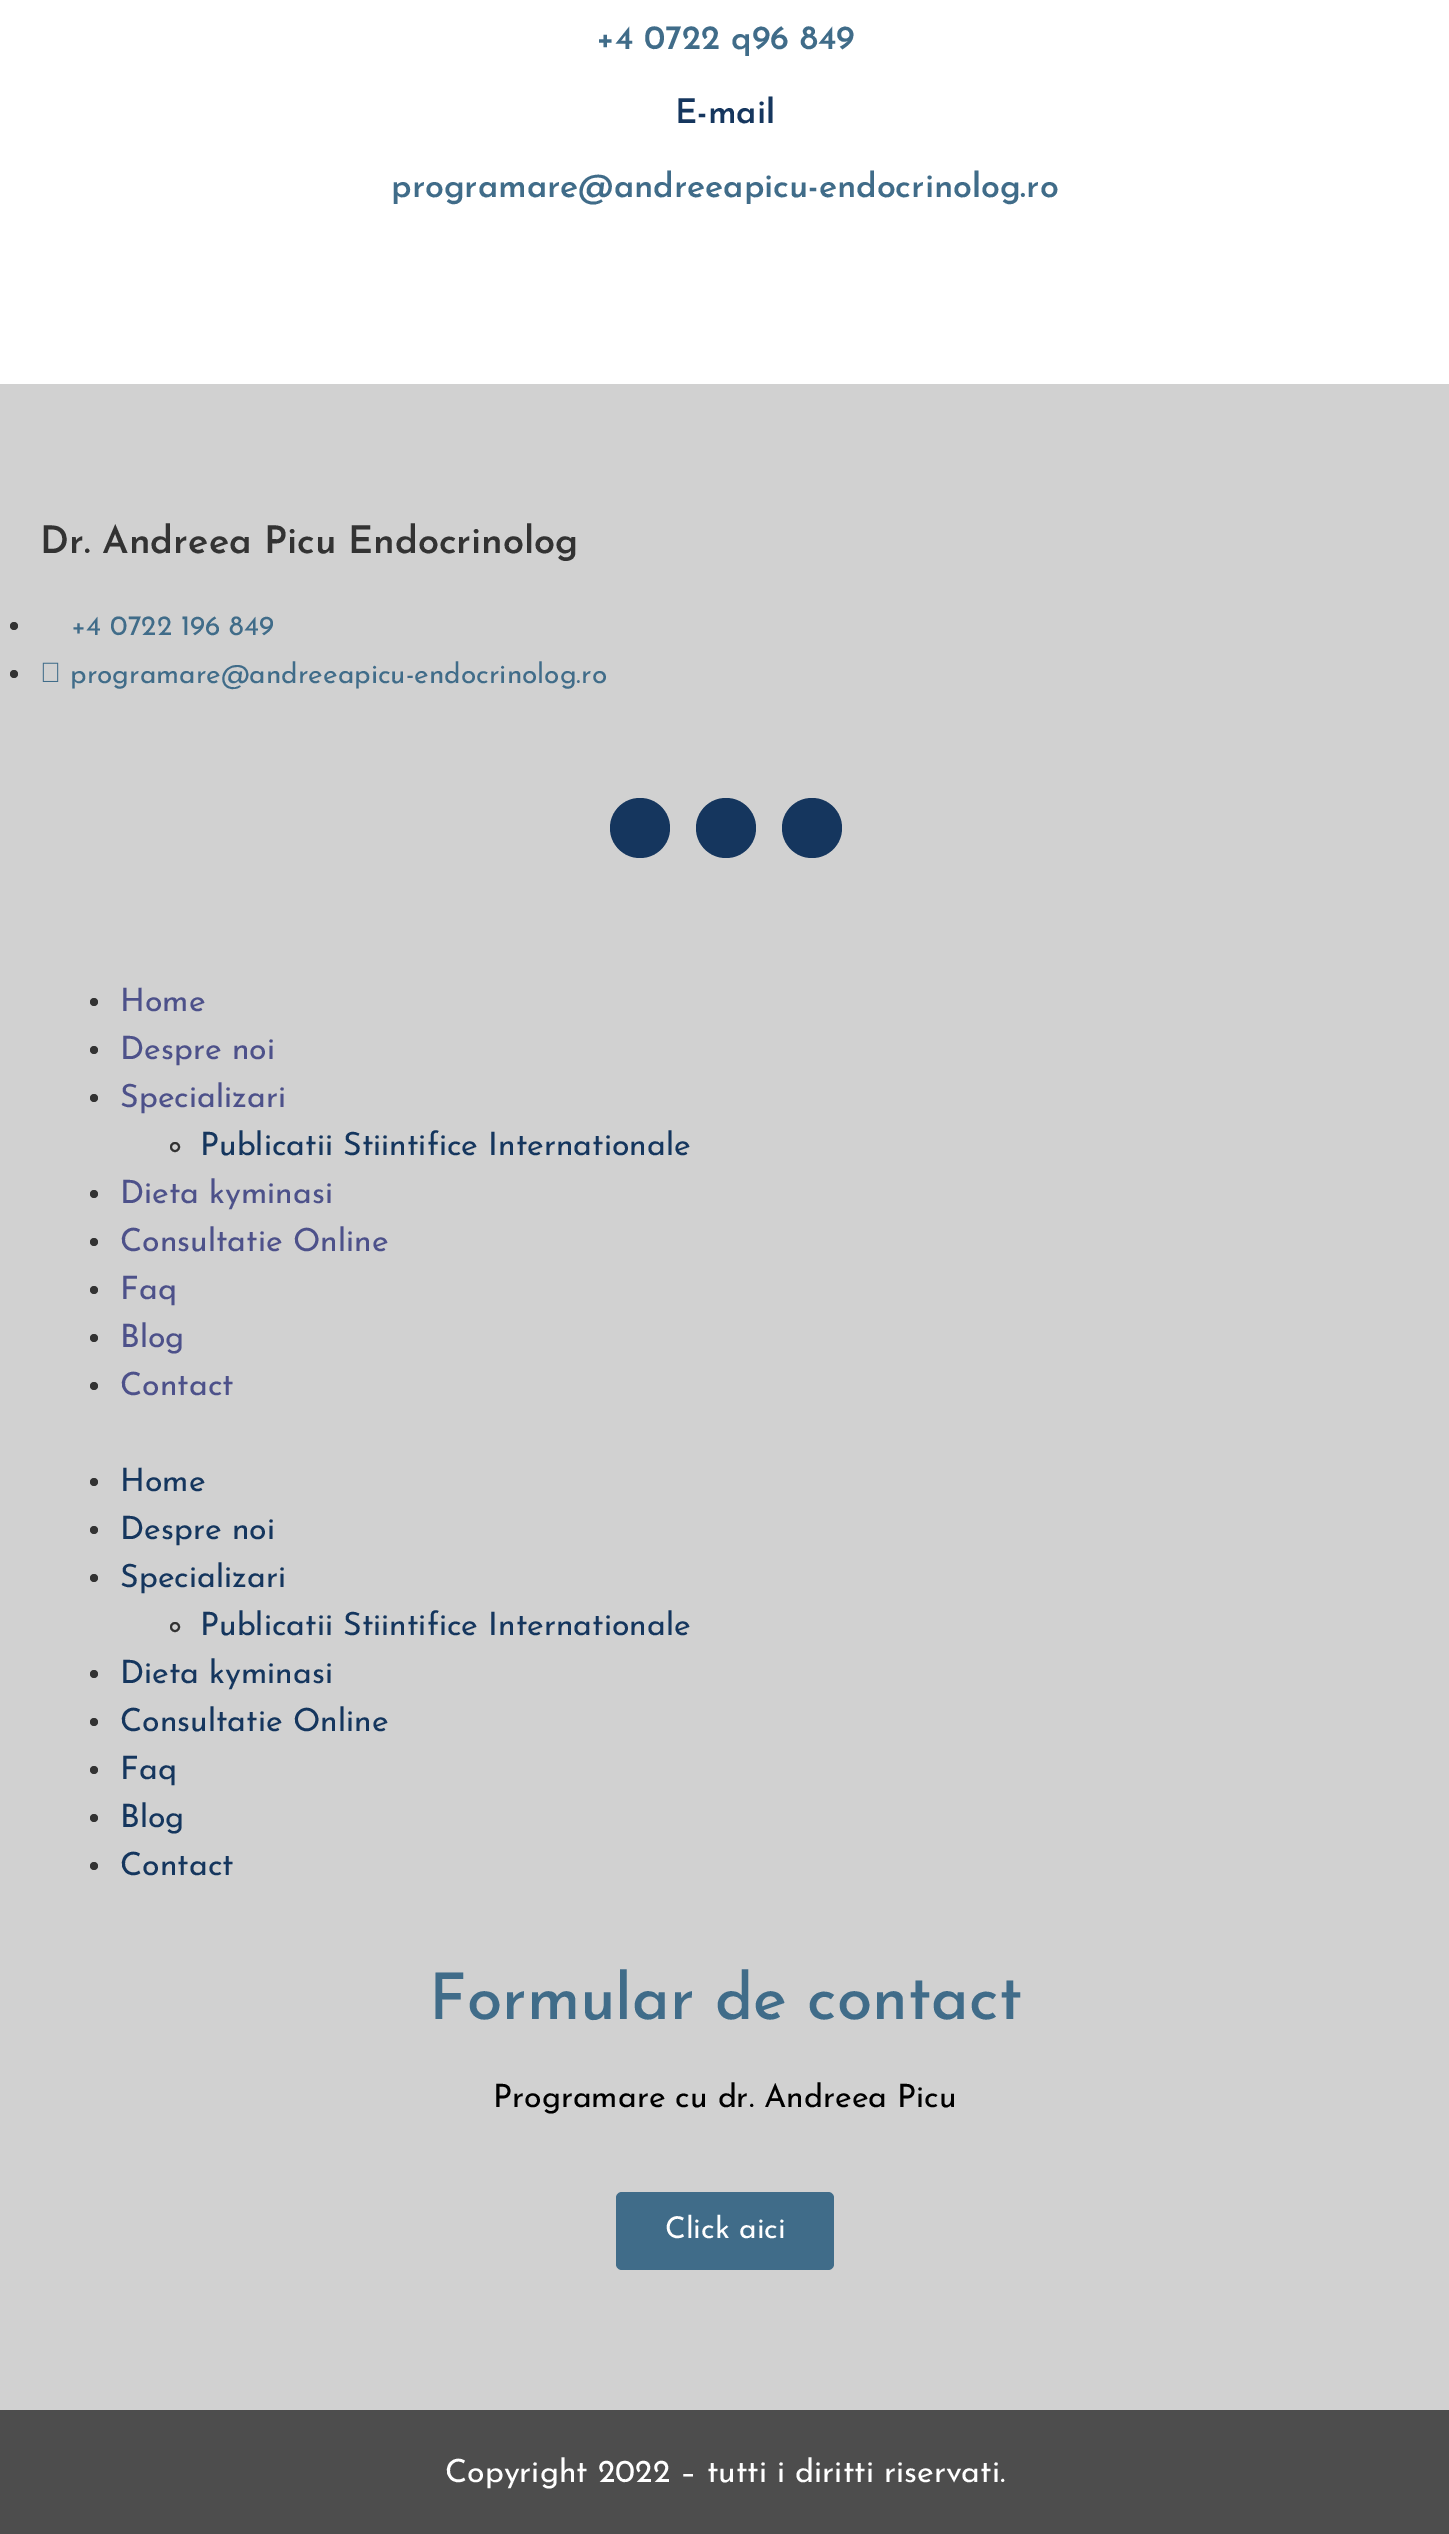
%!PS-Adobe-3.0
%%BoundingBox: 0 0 1449 2534
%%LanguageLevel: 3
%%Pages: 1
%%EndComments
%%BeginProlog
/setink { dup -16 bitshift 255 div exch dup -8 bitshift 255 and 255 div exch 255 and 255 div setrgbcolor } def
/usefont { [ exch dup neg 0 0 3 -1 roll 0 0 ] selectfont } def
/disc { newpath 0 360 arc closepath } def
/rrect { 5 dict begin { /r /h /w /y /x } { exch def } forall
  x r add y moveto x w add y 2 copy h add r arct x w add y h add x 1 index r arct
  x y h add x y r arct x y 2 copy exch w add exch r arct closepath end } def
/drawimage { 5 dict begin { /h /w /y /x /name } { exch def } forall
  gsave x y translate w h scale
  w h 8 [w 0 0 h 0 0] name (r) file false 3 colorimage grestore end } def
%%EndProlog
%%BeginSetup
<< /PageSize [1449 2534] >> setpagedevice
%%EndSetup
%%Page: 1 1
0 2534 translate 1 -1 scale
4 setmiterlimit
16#FFFFFF setink
0 0 1449 2534 rectfill
/JosefinSans-SemiBold 34 usefont
16#406C89 setink
596 49 moveto (+4 0722 q96 849) show
16#15365E setink
675 123 moveto (E-mail) show
16#406C89 setink
391 197 moveto (programare@andreeapicu-endocrinolog.ro) show
16#D1D1D1 setink
0 384 1449 2026 rectfill
/JosefinSans-SemiBold 38 usefont
16#333333 setink
40 553 moveto (Dr. Andreea Picu Endocrinolog) show
14 626 4 disc fill
/JosefinSans-Regular 28 usefont
16#406C89 setink
71 635 moveto (+4 0722 196 849) show
16#333333 setink
14 674 4 disc fill
(img1.raw) 42 662 17 20 drawimage
16#406C89 setink
70 683 moveto (programare@andreeapicu-endocrinolog.ro) show
16#15365E setink
640 828 30 disc fill
726 828 30 disc fill
812 828 30 disc fill
16#333333 setink
94 1002 4 disc fill
/JosefinSans-Regular 32 usefont
16#4D518A setink
120 1011 moveto (Home) show
16#333333 setink
94 1050 4 disc fill
16#4D518A setink
120 1059 moveto (Despre noi) show
16#333333 setink
94 1098 4 disc fill
16#4D518A setink
120 1107 moveto (Specializari) show
16#333333 setink
2 setlinewidth
175 1147 4 disc stroke
16#15365E setink
200 1155 moveto (Publicatii Stiintifice Internationale) show
16#333333 setink
94 1194 4 disc fill
16#4D518A setink
120 1203 moveto (Dieta kyminasi) show
16#333333 setink
94 1242 4 disc fill
16#4D518A setink
120 1251 moveto (Consultatie Online) show
16#333333 setink
94 1290 4 disc fill
16#4D518A setink
120 1299 moveto (Faq) show
16#333333 setink
94 1338 4 disc fill
16#4D518A setink
120 1347 moveto (Blog) show
16#333333 setink
94 1386 4 disc fill
16#4D518A setink
120 1395 moveto (Contact) show
16#333333 setink
94 1482 4 disc fill
16#15365E setink
120 1491 moveto (Home) show
16#333333 setink
94 1530 4 disc fill
16#15365E setink
120 1539 moveto (Despre noi) show
16#333333 setink
94 1578 4 disc fill
16#15365E setink
120 1587 moveto (Specializari) show
16#333333 setink
175 1627 4 disc stroke
16#15365E setink
200 1635 moveto (Publicatii Stiintifice Internationale) show
16#333333 setink
94 1674 4 disc fill
16#15365E setink
120 1683 moveto (Dieta kyminasi) show
16#333333 setink
94 1722 4 disc fill
16#15365E setink
120 1731 moveto (Consultatie Online) show
16#333333 setink
94 1770 4 disc fill
16#15365E setink
120 1779 moveto (Faq) show
16#333333 setink
94 1818 4 disc fill
16#15365E setink
120 1827 moveto (Blog) show
16#333333 setink
94 1866 4 disc fill
16#15365E setink
120 1875 moveto (Contact) show
/JosefinSans-Medium 64 usefont
16#406C89 setink
429 2019 moveto (Formular de contact) show
/JosefinSans-Regular 32 usefont
16#000000 setink
493 2107 moveto (Programare cu dr. Andreea Picu) show
16#406C89 setink
616 2192 218 78 6 rrect fill
/JosefinSans-Regular 30 usefont
16#FFFFFF setink
665 2238 moveto (Click aici) show
16#4D4D4D setink
0 2410 1449 124 rectfill
/JosefinSans-Regular 32 usefont
16#FFFFFF setink
445 2482 moveto (Copyright 2022 – tutti i diritti riservati.) show
showpage
%%EOF
